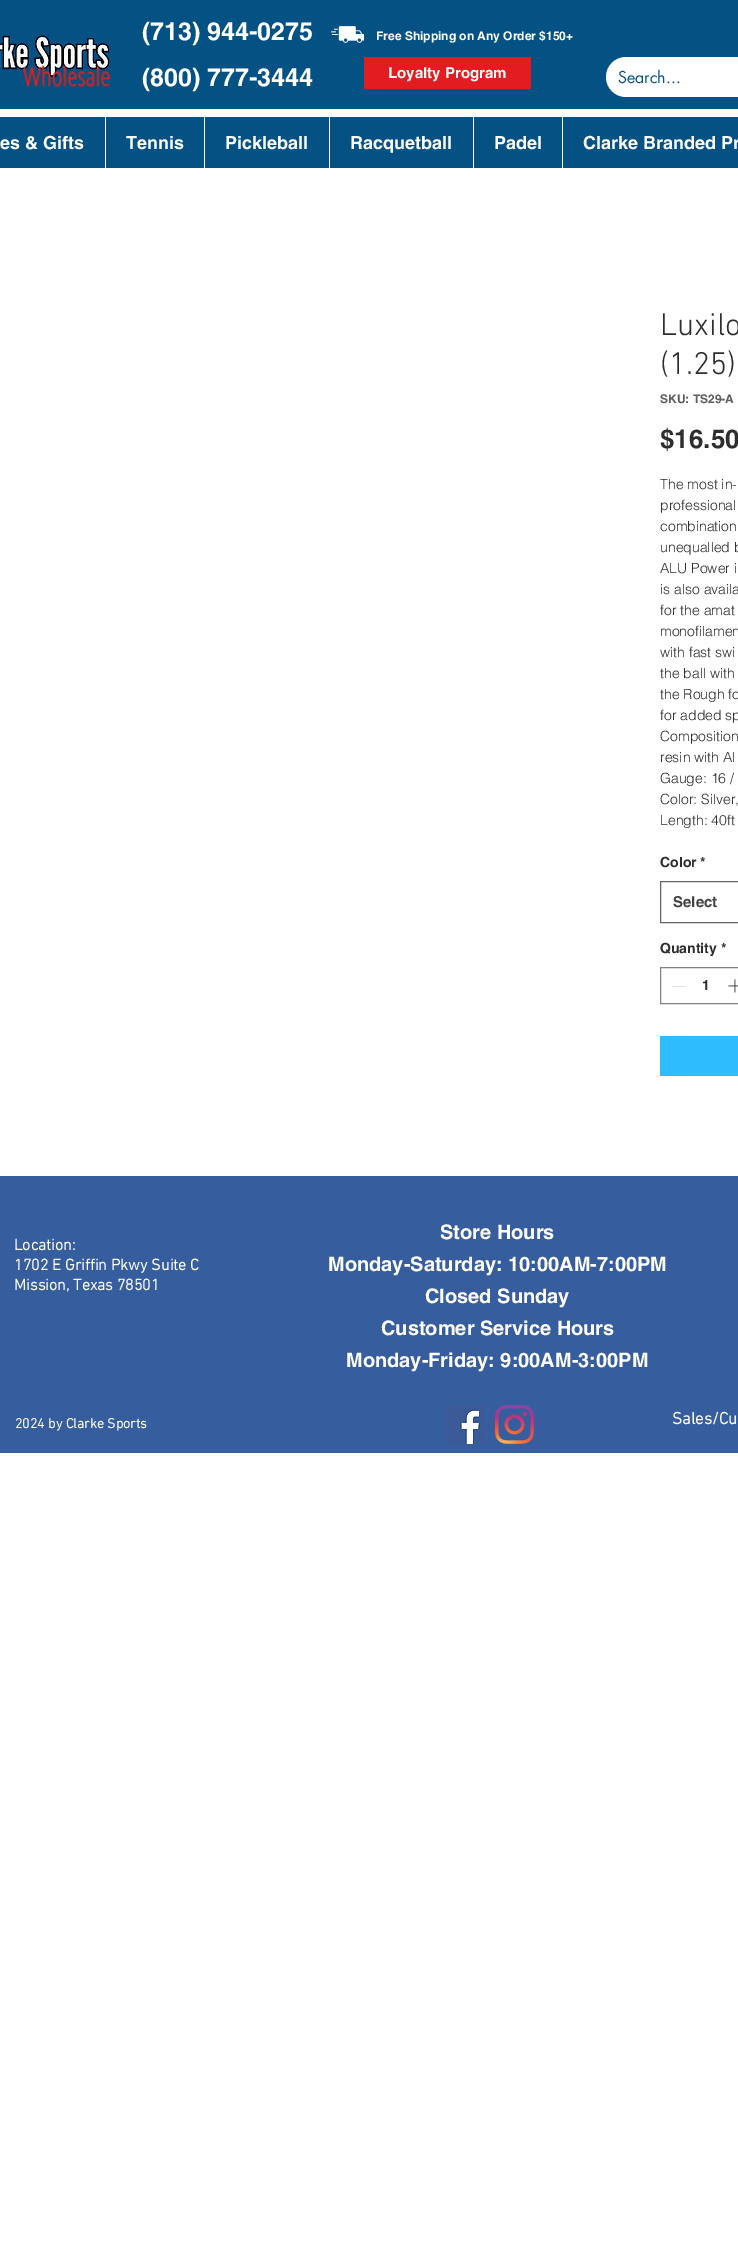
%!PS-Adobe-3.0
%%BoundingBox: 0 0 738 2264
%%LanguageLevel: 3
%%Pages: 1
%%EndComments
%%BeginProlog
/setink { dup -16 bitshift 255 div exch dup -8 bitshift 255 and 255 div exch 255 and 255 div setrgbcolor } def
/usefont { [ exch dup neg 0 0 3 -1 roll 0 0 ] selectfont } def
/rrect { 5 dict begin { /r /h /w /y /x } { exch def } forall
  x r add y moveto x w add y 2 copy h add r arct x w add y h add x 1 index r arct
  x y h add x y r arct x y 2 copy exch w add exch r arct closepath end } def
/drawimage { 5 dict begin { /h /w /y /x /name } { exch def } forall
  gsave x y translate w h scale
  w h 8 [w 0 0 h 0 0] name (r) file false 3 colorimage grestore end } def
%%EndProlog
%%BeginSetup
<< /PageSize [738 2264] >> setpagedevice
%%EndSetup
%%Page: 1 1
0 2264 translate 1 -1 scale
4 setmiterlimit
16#FFFFFF setink
0 0 738 2264 rectfill
16#045184 setink
0 0 738 109 rectfill
(img1.raw) 0 35 111 52 drawimage
/helvetica-Bold 25 usefont
16#FFFFFF setink
142 40 moveto (\(713\) 944-0275) show
(img2.raw) 331 26 33 17 drawimage
/helvetica-Bold 12 usefont
376 40 moveto (Free Shipping on Any Order $150+) show
/helvetica-Bold 25 usefont
142 86 moveto (\(800\) 777-3444) show
16#E21C21 setink
364 57 167 32 rectfill
/helvetica-Bold 15 usefont
16#FFFFFF setink
388 78 moveto (Loyalty Program) show
606 57 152 40 20 rrect fill
/futura-Regular 16 usefont
16#045184 setink
618 83 moveto (Search...) show
0 117 738 51 rectfill
/helvetica-Bold 18 usefont
16#FFFFFF setink
0 149 moveto (es & Gifts) show
105 117 1 51 rectfill
126 149 moveto (Tennis) show
204 117 1 51 rectfill
225 149 moveto (Pickleball) show
329 117 1 51 rectfill
350 149 moveto (Racquetball) show
473 117 1 51 rectfill
494 149 moveto (Padel) show
562 117 1 51 rectfill
583 149 moveto (Clarke Branded Pr) show
/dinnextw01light-Light 32 usefont
16#2F2E2E setink
660 335 moveto (Luxilo) show
660 374 moveto (\(1.25\)) show
/helvetica-Bold 12 usefont
16#605E5E setink
660 403 moveto (SKU: TS29-A) show
/helvetica-Bold 26 usefont
16#2F2E2E setink
660 448 moveto ($16.50) show
/helvetica-Light 14 usefont
[
    [(The most in-) 660 489]
    [(professional) 660 510]
    [(combination) 660 531]
    [(unequalled b) 660 552]
    [(ALU Power i) 660 573]
    [(is also availa) 660 594]
    [(for the amat) 660 615]
    [(monofilamen) 660 636]
    [(with fast swi) 660 657]
    [(the ball with) 660 678]
    [(the Rough fo) 660 699]
    [(for added sp) 660 720]
    [(Composition) 660 741]
    [(resin with Al) 660 762]
    [(Gauge: 16 /) 660 783]
    [(Color: Silver,) 660 804]
    [(Length: 40ft) 660 825]
] { aload pop moveto show } forall
/helvetica-Bold 14 usefont
660 867 moveto (Color *) show
16#666666 setink
660.5 881.5 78 41 rectstroke
/helvetica-Bold 15 usefont
16#444444 setink
673 907 moveto (Select) show
/helvetica-Bold 14 usefont
16#2F2E2E setink
660 953 moveto (Quantity *) show
16#828282 setink
660.5 967.5 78 36 rectstroke
16#E3E3E3 setink
672 986 13 1 rectfill
16#2F2E2E setink
702 990 moveto (1) show
(img3.raw) 728 979 10 14 drawimage
16#30BDFF setink
660 1036 78 40 rectfill
16#365D9D setink
0 1176 738 277 rectfill
/dinnextw01light-Bold 16 usefont
16#FFFFFF setink
[
    [(Location:) 14 1250]
    [(1702 E Griffin Pkwy Suite C) 14 1270]
    [(Mission, Texas 78501) 14 1290]
] { aload pop moveto show } forall
/helvetica-Bold 20 usefont
[
    [(Store Hours) 440 1239]
    [(Monday-Saturday: 10:00AM-7:00PM) 328 1271]
    [(Closed Sunday) 425 1303]
    [(Customer Service Hours) 381 1335]
    [(Monday-Friday: 9:00AM-3:00PM) 346 1367]
] { aload pop moveto show } forall
/dinnextw01light-Bold 14 usefont
15 1428 moveto (2024 by Clarke Sports) show
(img4.raw) 446 1405 39 39 drawimage
(img5.raw) 495 1405 39 39 drawimage
/dinnextw01light-Bold 17 usefont
672 1424 moveto (Sales/Cu) show
showpage
%%EOF
